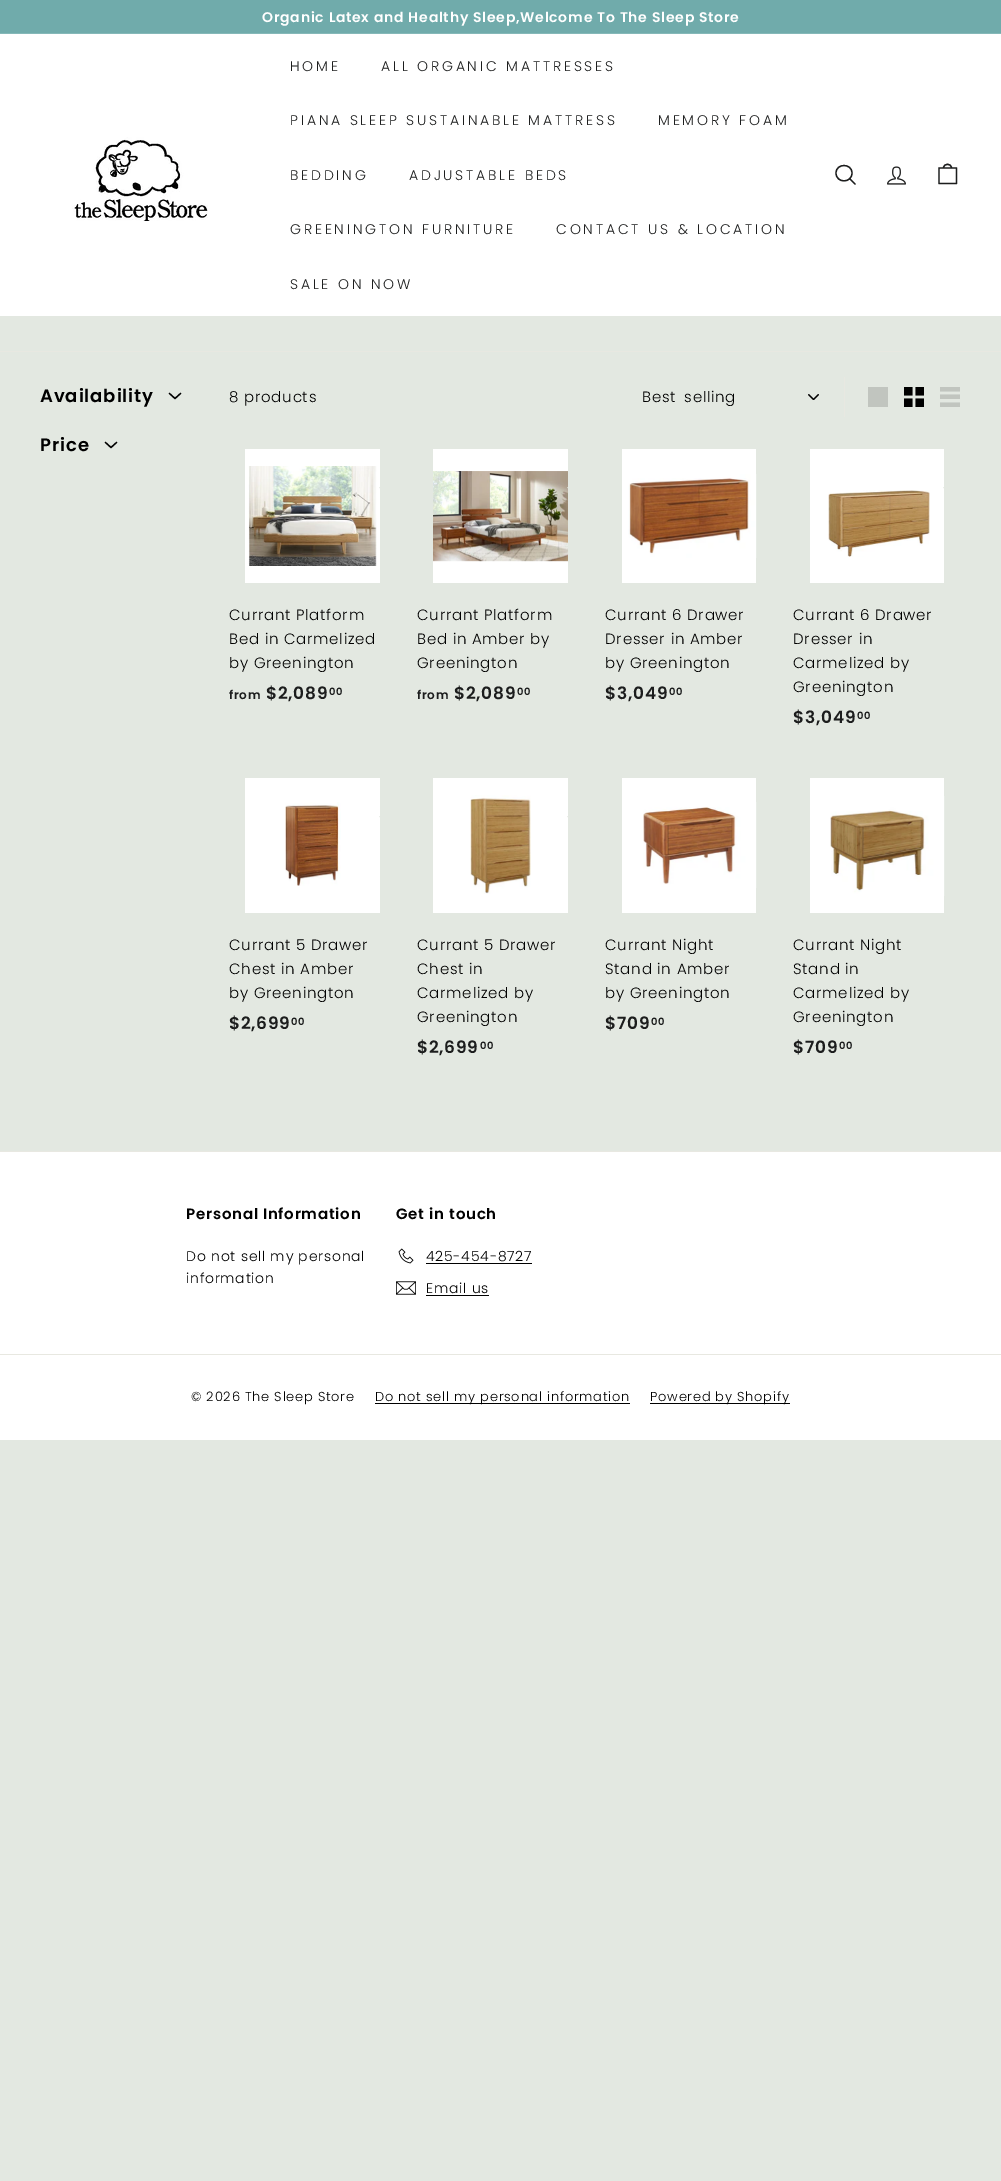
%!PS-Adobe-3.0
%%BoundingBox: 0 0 1001 2181
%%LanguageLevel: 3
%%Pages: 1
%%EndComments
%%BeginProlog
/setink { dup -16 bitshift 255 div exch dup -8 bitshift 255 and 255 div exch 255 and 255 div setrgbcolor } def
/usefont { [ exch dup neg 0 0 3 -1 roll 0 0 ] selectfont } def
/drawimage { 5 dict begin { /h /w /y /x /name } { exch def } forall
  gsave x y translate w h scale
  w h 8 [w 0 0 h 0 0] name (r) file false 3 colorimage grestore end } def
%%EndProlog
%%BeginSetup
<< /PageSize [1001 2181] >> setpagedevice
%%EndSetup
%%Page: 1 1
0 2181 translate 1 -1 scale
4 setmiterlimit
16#E3E8E1 setink
0 0 1001 2181 rectfill
16#70ABAB setink
0 0 1001 33 rectfill
/Poppins-SemiBold 14 usefont
16#FFFFFF setink
262 22 moveto 0.75 0 (Organic Latex and Healthy Sleep,Welcome To The Sleep Store) ashow
16#85B8B8 setink
0 33 1001 1 rectfill
16#FFFFFF setink
0 34 1001 282 rectfill
(img1.raw) 72 137 136 84 drawimage
/Poppins-Light 14 usefont
16#1C1D1D setink
290 71 moveto 2.8 0 (HOME) ashow
381 71 moveto 2.8 0 (ALL ORGANIC MATTRESSES) ashow
290 125 moveto 2.8 0 (PIANA SLEEP SUSTAINABLE MATTRESS) ashow
658 125 moveto 2.8 0 (MEMORY FOAM) ashow
290 180 moveto 2.8 0 (BEDDING) ashow
409 180 moveto 2.8 0 (ADJUSTABLE BEDS) ashow
290 234 moveto 2.8 0 (GREENINGTON FURNITURE) ashow
556 234 moveto 2.8 0 (CONTACT US & LOCATION) ashow
290 289 moveto 2.8 0 (SALE ON NOW) ashow
1.3 setlinewidth
1 setlinecap
1 setlinejoin
852 173 moveto 852 183.5 836 183.5 836 173 curveto 836 163 852 163 852 173 curveto closepath 855 184 moveto 849.5 178.5 lineto stroke
(img2.raw) 887 166 19 19 drawimage
943.5 168 moveto 943.5 163 951.5 163 951.5 168 curveto 939 168 moveto 956.5 168 lineto 956.5 183.5 lineto 939 183.5 lineto closepath stroke
16#E8E8E1 setink
0 351 1001 1 rectfill
/Poppins-SemiBold 18 usefont
16#000000 setink
40 402 moveto 0.9 0 (Availability) ashow
169.5 393.5 moveto 175 398.5 lineto 180.5 393.5 lineto stroke
40 451 moveto 0.9 0 (Price) ashow
105.5 442.5 moveto 111 447.5 lineto 116.5 442.5 lineto stroke
/Poppins-Light 15 usefont
229 402 moveto 0.75 0 (8 products) ashow
16#E8E8E1 setink
844 377 1 40 rectfill
(img3.raw) 808 394 11 6 drawimage
16#000000 setink
642 402 moveto 3 0 32 0.75 0 (Best selling) awidthshow
16#C1C5BF setink
868 387 20 20 rectfill
(img4.raw) 904 387 20 20 drawimage
(img5.raw) 940 387 20 20 drawimage
16#FFFFFF setink
245 449 135 134 rectfill
16#E3E8E1 setink
1.1 setlinewidth
388.5 479 moveto 388.5 496 lineto 397 487.5 moveto 380 487.5 lineto stroke
(img6.raw) 248 466 129 100 drawimage
16#000000 setink
229 620 moveto 0.75 0 (Currant Platform) ashow
229 644 moveto 0.75 0 (Bed in Carmelized) ashow
229 668 moveto 0.75 0 (by Greenington) ashow
/Poppins-SemiBold 12 usefont
16#1C1D1D setink
229 699 moveto 0.75 0 (from) ashow
/Poppins-SemiBold 17 usefont
266 699 moveto 0.75 0 ($2,089) ashow
/Poppins-SemiBold 10 usefont
329 695 moveto 0.75 0 (00) ashow
16#FFFFFF setink
433 449 135 134 rectfill
(img7.raw) 433 471 135 91 drawimage
16#E3E8E1 setink
576.5 479 moveto 576.5 496 lineto 585 487.5 moveto 568 487.5 lineto stroke
/Poppins-Light 15 usefont
16#000000 setink
417 620 moveto 0.75 0 (Currant Platform) ashow
417 644 moveto 0.75 0 (Bed in Amber by) ashow
417 668 moveto 0.75 0 (Greenington) ashow
/Poppins-SemiBold 12 usefont
16#1C1D1D setink
417 699 moveto 0.75 0 (from) ashow
/Poppins-SemiBold 17 usefont
454 699 moveto 0.75 0 ($2,089) ashow
/Poppins-SemiBold 10 usefont
517 695 moveto 0.75 0 (00) ashow
16#FFFFFF setink
622 449 134 134 rectfill
(img8.raw) 628 474 129 84 drawimage
/Poppins-Light 15 usefont
16#000000 setink
605 620 moveto 0.75 0 (Currant 6 Drawer) ashow
605 644 moveto 0.75 0 (Dresser in Amber) ashow
605 668 moveto 0.75 0 (by Greenington) ashow
/Poppins-SemiBold 17 usefont
16#1C1D1D setink
605 699 moveto 0.75 0 ($3,049) ashow
/Poppins-SemiBold 10 usefont
669 695 moveto 0.75 0 (00) ashow
16#FFFFFF setink
810 449 134 134 rectfill
16#E3E8E1 setink
952.5 479 moveto 952.5 496 lineto 961 487.5 moveto 944 487.5 lineto stroke
(img9.raw) 828 490 102 67 drawimage
/Poppins-Light 15 usefont
16#000000 setink
793 620 moveto 0.75 0 (Currant 6 Drawer) ashow
793 644 moveto 0.75 0 (Dresser in) ashow
793 668 moveto 0.75 0 (Carmelized by) ashow
793 692 moveto 0.75 0 (Greenington) ashow
/Poppins-SemiBold 17 usefont
16#1C1D1D setink
793 723 moveto 0.75 0 ($3,049) ashow
/Poppins-SemiBold 10 usefont
857 719 moveto 0.75 0 (00) ashow
16#FFFFFF setink
245 778 135 135 rectfill
16#E3E8E1 setink
388.5 808 moveto 388.5 825 lineto 397 816.5 moveto 380 816.5 lineto stroke
(img10.raw) 285 802 56 84 drawimage
/Poppins-Light 15 usefont
16#000000 setink
229 950 moveto 0.75 0 (Currant 5 Drawer) ashow
229 974 moveto 0.75 0 (Chest in Amber) ashow
229 998 moveto 0.75 0 (by Greenington) ashow
/Poppins-SemiBold 17 usefont
16#1C1D1D setink
229 1029 moveto 0.75 0 ($2,699) ashow
/Poppins-SemiBold 10 usefont
291 1025 moveto 0.75 0 (00) ashow
16#FFFFFF setink
433 778 135 135 rectfill
16#E3E8E1 setink
576.5 808 moveto 576.5 825 lineto 585 816.5 moveto 568 816.5 lineto stroke
(img11.raw) 470 795 61 99 drawimage
/Poppins-Light 15 usefont
16#000000 setink
417 950 moveto 0.75 0 (Currant 5 Drawer) ashow
417 974 moveto 0.75 0 (Chest in) ashow
417 998 moveto 0.75 0 (Carmelized by) ashow
417 1022 moveto 0.75 0 (Greenington) ashow
/Poppins-SemiBold 17 usefont
16#1C1D1D setink
417 1053 moveto 0.75 0 ($2,699) ashow
/Poppins-SemiBold 10 usefont
480 1049 moveto 0.75 0 (00) ashow
16#FFFFFF setink
622 778 134 135 rectfill
(img12.raw) 643 802 114 86 drawimage
/Poppins-Light 15 usefont
16#000000 setink
605 950 moveto 0.75 0 (Currant Night) ashow
605 974 moveto 0.75 0 (Stand in Amber) ashow
605 998 moveto 0.75 0 (by Greenington) ashow
/Poppins-SemiBold 17 usefont
16#1C1D1D setink
605 1029 moveto 0.75 0 ($709) ashow
/Poppins-SemiBold 10 usefont
651 1025 moveto 0.75 0 (00) ashow
16#FFFFFF setink
810 778 134 135 rectfill
(img13.raw) 830 796 115 100 drawimage
/Poppins-Light 15 usefont
16#000000 setink
793 950 moveto 0.75 0 (Currant Night) ashow
793 974 moveto 0.75 0 (Stand in) ashow
793 998 moveto 0.75 0 (Carmelized by) ashow
793 1022 moveto 0.75 0 (Greenington) ashow
/Poppins-SemiBold 17 usefont
16#1C1D1D setink
793 1053 moveto 0.75 0 ($709) ashow
/Poppins-SemiBold 10 usefont
839 1049 moveto 0.75 0 (00) ashow
16#FFFFFF setink
0 1152 1001 288 rectfill
16#E8E8E1 setink
0 1151 1001 1 rectfill
/Poppins-SemiBold 15 usefont
16#000000 setink
186 1219 moveto 0.75 0 (Personal Information) ashow
/Poppins-Light 14 usefont
186 1261 moveto 0.75 0 (Do not sell my personal) ashow
186 1283 moveto 0.75 0 (information) ashow
/Poppins-SemiBold 15 usefont
396 1219 moveto 0.75 0 (Get in touch) ashow
(img14.raw) 398 1248 16 16 drawimage
/Poppins-Light 14 usefont
426 1261 moveto 0.75 0 (425-454-8727) ashow
426 1263 106 1 rectfill
(img15.raw) 396 1281 20 14 drawimage
426 1293 moveto 0.75 0 (Email us) ashow
426 1295 63 1 rectfill
16#E8E8E1 setink
0 1354 1001 1 rectfill
/Poppins-Light 13 usefont
16#000000 setink
191 1401 moveto 0.75 0 (© 2026 The Sleep Store) ashow
375 1403 255 1 rectfill
375 1401 moveto 0.75 0 (Do not sell my personal information) ashow
650 1403 140 1 rectfill
650 1401 moveto 0.75 0 (Powered by Shopify) ashow
showpage
%%EOF
